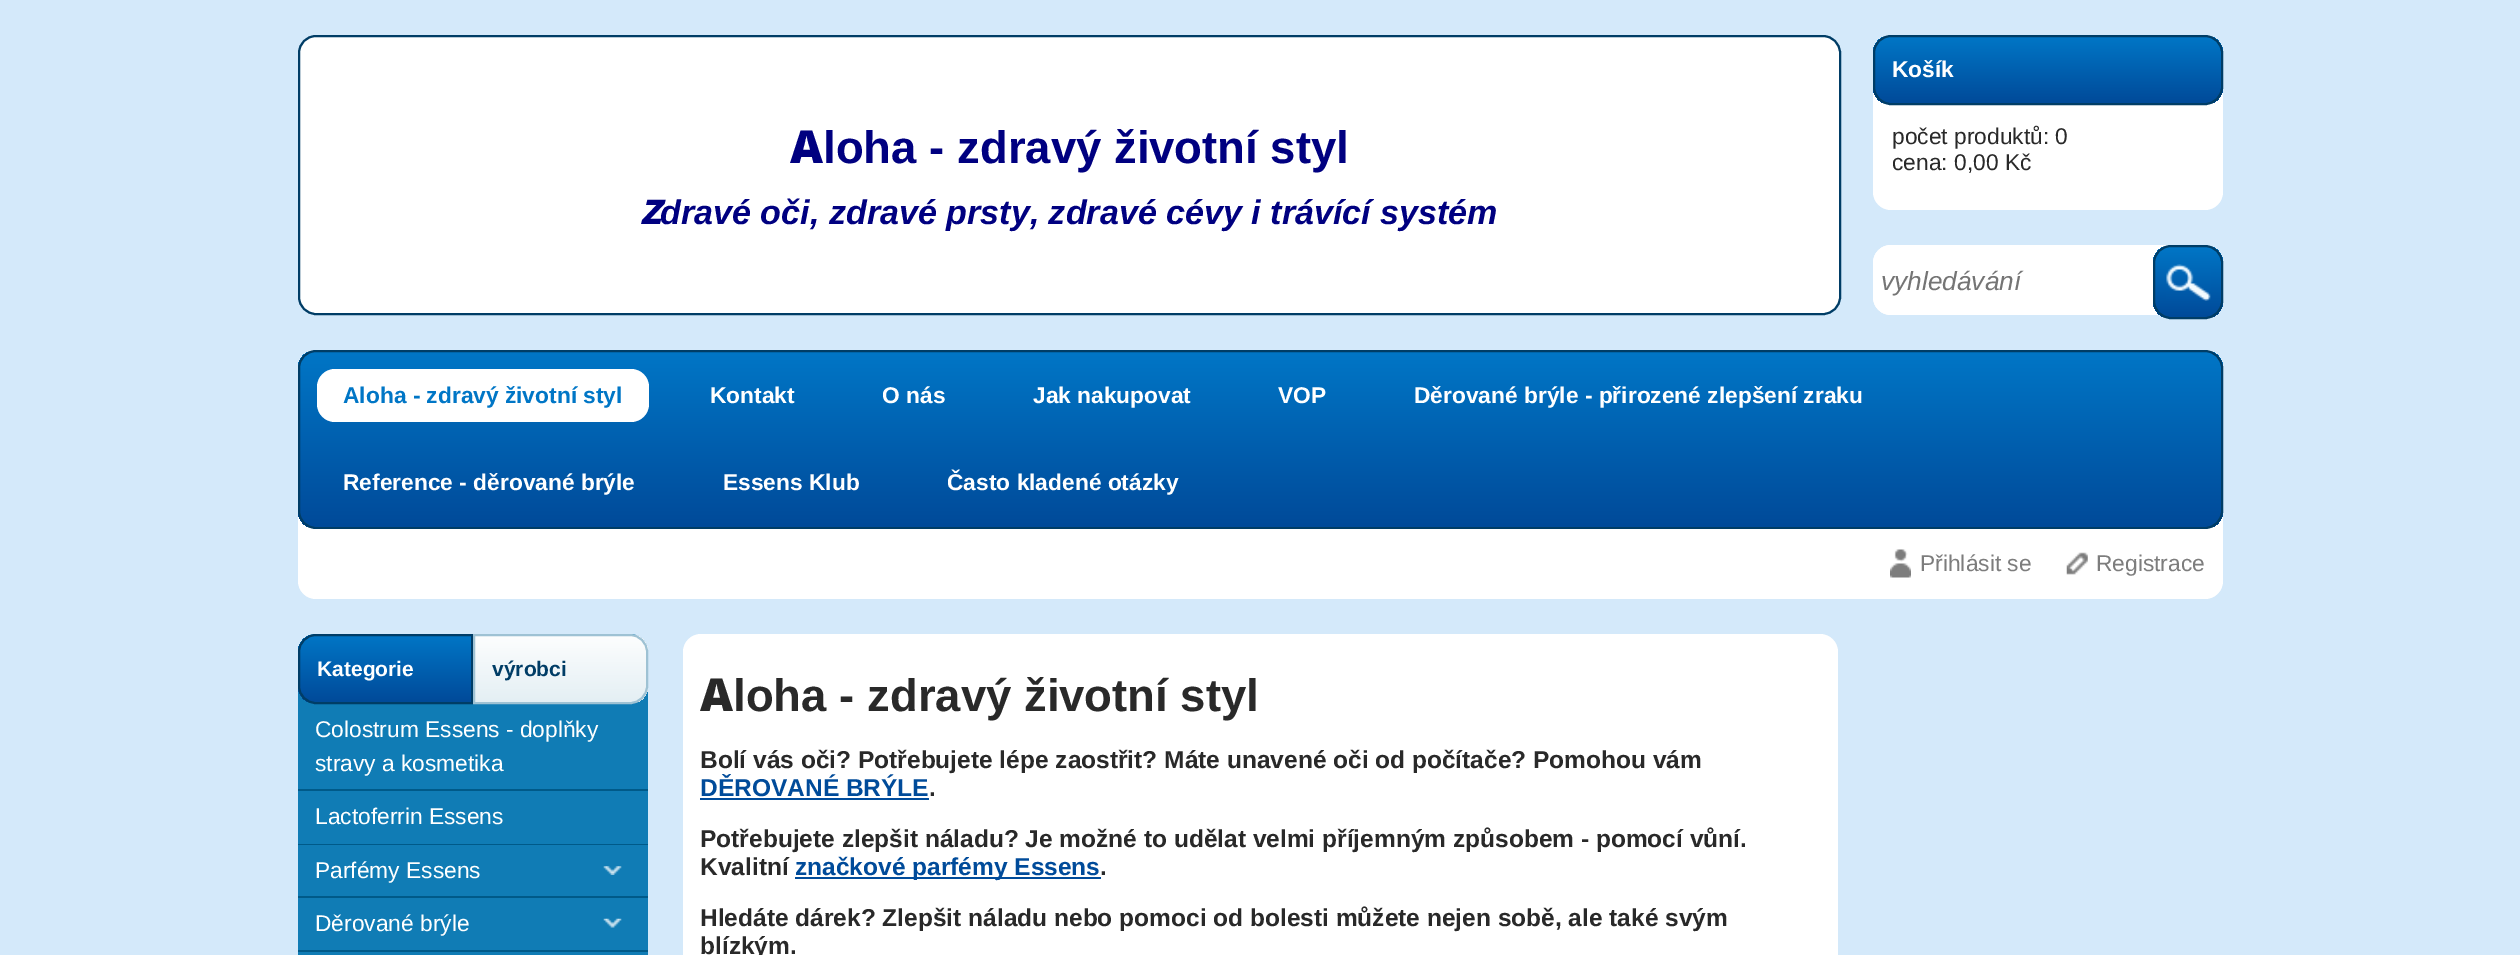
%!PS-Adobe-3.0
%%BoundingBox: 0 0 2520 955
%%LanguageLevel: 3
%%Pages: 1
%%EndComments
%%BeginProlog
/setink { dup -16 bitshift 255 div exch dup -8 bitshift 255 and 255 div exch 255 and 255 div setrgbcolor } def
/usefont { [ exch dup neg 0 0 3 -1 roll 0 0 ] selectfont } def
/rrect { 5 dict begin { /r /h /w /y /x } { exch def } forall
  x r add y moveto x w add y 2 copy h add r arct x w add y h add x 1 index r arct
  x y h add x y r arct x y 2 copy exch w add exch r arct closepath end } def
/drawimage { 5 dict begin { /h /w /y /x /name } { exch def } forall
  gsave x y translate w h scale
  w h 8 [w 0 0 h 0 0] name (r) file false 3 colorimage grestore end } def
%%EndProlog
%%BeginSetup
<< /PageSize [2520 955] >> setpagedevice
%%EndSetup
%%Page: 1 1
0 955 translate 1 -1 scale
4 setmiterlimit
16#D4E9FA setink
0 0 2520 955 rectfill
16#FFFFFF setink
299 36 1541 278 17 rrect gsave fill grestore
16#003D66 setink
2 setlinewidth
stroke
/NotoSans-Black 45.5 usefont
16#000080 setink
790 163 moveto (A) show
/LiberationSans-Bold 45.5 usefont
823 163 moveto (loha - zdravý životní styl) show
/NotoSans-BlackItalic 34.1 usefont
640 224 moveto (Z) show
/LiberationSans-BoldItalic 34.1 usefont
660 224 moveto (dravé oči, zdravé prsty, zdravé cévy i trávící systém) show
16#FFFFFF setink
1873 35 350 175 18 rrect fill
gsave
1873 35 350 70 18 rrect clip newpath
gsave 1873 37 moveto 2223 37 lineto 2223 103 lineto 1873 103 lineto closepath clip newpath
<< /ShadingType 2 /ColorSpace /DeviceRGB /Coords [2048 37 2048 103] /Extend [true true] /Function << /FunctionType 2 /Domain [0 1] /C0 [0 0.463 0.776] /C1 [0 0.29 0.6] /N 1 >> >> shfill grestore
grestore
16#003D66 setink
1874 36 348 68 17 rrect stroke
/LiberationSans-Bold 22.75 usefont
16#FFFFFF setink
1892 77 moveto (Košík) show
/LiberationSans-Regular 22.75 usefont
16#292929 setink
1892 144 moveto (počet produktů: 0) show
1892 170 moveto (cena: 0,00 Kč) show
16#FFFFFF setink
1873 245 350 70 18 rrect fill
1891 245 moveto 2153 245 lineto 2153 315 lineto 1891 315 lineto 1881 315 1873 307 1873 297 curveto 1873 263 lineto 1873 253 1881 245 1891 245 curveto closepath fill
/LiberationSans-Italic 26.25 usefont
16#757575 setink
1881 290 moveto (vyhledávání) show
gsave
2153 245 70 74 18 rrect clip newpath
gsave 2153 247 moveto 2223 247 lineto 2223 317 lineto 2153 317 lineto closepath clip newpath
<< /ShadingType 2 /ColorSpace /DeviceRGB /Coords [2188 247 2188 317] /Extend [true true] /Function << /FunctionType 2 /Domain [0 1] /C0 [0 0.463 0.776] /C1 [0 0.29 0.6] /N 1 >> >> shfill grestore
grestore
16#003D66 setink
2154 246 68 72 17 rrect stroke
(img1.raw) 2166 264 45 37 drawimage
16#FFFFFF setink
316 350 moveto 2205 350 lineto 2215 350 2223 358 2223 368 curveto 2223 529 lineto 298 529 lineto 298 368 lineto 298 358 306 350 316 350 curveto closepath fill
gsave
298 350 1925 179 18 rrect clip newpath
gsave 298 352 moveto 2223 352 lineto 2223 527 lineto 298 527 lineto closepath clip newpath
<< /ShadingType 2 /ColorSpace /DeviceRGB /Coords [1260 352 1260 527] /Extend [true true] /Function << /FunctionType 2 /Domain [0 1] /C0 [0 0.463 0.776] /C1 [0 0.29 0.6] /N 1 >> >> shfill grestore
grestore
16#003D66 setink
299 351 1923 177 17 rrect stroke
16#FFFFFF setink
317 369 332 53 18 rrect fill
/LiberationSans-Bold 22.75 usefont
16#0076C6 setink
343 403 moveto (Aloha - zdravý životní styl) show
16#FFFFFF setink
[
    [(Kontakt) 710 403]
    [(O nás) 882 403]
    [(Jak nakupovat) 1033 403]
    [(VOP) 1278 403]
    [(Děrované brýle - přirozené zlepšení zraku) 1414 403]
    [(Reference - děrované brýle) 343 490]
    [(Essens Klub) 723 490]
    [(Často kladené otázky) 947 490]
] { aload pop moveto show } forall
298 529 moveto 2223 529 lineto 2223 581 lineto 2223 591 2215 599 2205 599 curveto 316 599 lineto 306 599 298 591 298 581 curveto closepath fill
(img2.raw) 1890 549 21 29 drawimage
/LiberationSans-Regular 22.75 usefont
16#7D7D7D setink
1920 571 moveto (Přihlásit se) show
(img3.raw) 2066 552 22 23 drawimage
2096 571 moveto (Registrace) show
16#107CB5 setink
298 634 350 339 18 rrect fill
gsave
316 634 moveto 473 634 lineto 473 704 lineto 316 704 lineto 306 704 298 696 298 686 curveto 298 652 lineto 298 642 306 634 316 634 curveto closepath clip newpath
gsave 298 635 moveto 471 635 lineto 471 702 lineto 298 702 lineto closepath clip newpath
<< /ShadingType 2 /ColorSpace /DeviceRGB /Coords [385 635 385 702] /Extend [true true] /Function << /FunctionType 2 /Domain [0 1] /C0 [0 0.463 0.776] /C1 [0 0.29 0.6] /N 1 >> >> shfill grestore
grestore
16#003D66 setink
316 635 moveto 472 635 lineto 472 703 lineto 316 703 lineto 306.5 703 299 695.5 299 686 curveto 299 652 lineto 299 642.5 306.5 635 316 635 curveto closepath stroke
/LiberationSans-Bold 21 usefont
16#FFFFFF setink
317 676 moveto (Kategorie) show
gsave
473 634 moveto 630 634 lineto 640 634 648 642 648 652 curveto 648 686 lineto 648 696 640 704 630 704 curveto 473 704 lineto closepath clip newpath
gsave 475 635 moveto 648 635 lineto 648 702 lineto 475 702 lineto closepath clip newpath
<< /ShadingType 2 /ColorSpace /DeviceRGB /Coords [560 635 560 702] /Extend [true true] /Function << /FunctionType 2 /Domain [0 1] /C0 [0.992 0.996 0.996] /C1 [0.894 0.937 0.957] /N 1 >> >> shfill grestore
grestore
16#9EC2D4 setink
474 635 moveto 630 635 lineto 639.5 635 647 642.5 647 652 curveto 647 686 lineto 647 695.5 639.5 703 630 703 curveto 474 703 lineto closepath stroke
16#003D66 setink
492 676 moveto (výrobci) show
16#005A89 setink
298 789 350 2 rectfill
/LiberationSans-Regular 22.75 usefont
16#FFFFFF setink
315 737 moveto (Colostrum Essens - doplňky) show
315 771 moveto (stravy a kosmetika) show
16#005A89 setink
298 844 350 1 rectfill
16#FFFFFF setink
315 824 moveto (Lactoferrin Essens) show
16#005A89 setink
298 896 350 2 rectfill
16#FFFFFF setink
315 878 moveto (Parfémy Essens) show
(img4.raw) 603 866 19 9 drawimage
16#005A89 setink
298 950 350 2 rectfill
16#FFFFFF setink
315 931 moveto (Děrované brýle) show
(img5.raw) 603 918 19 10 drawimage
683 634 1155 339 18 rrect fill
/NotoSans-Black 45.5 usefont
16#292929 setink
700 711 moveto (A) show
/LiberationSans-Bold 45.5 usefont
733 711 moveto (loha - zdravý životní styl) show
/LiberationSans-Bold 24.5 usefont
700 768 moveto (Bolí vás oči? Potřebujete lépe zaostřit? Máte unavené oči od počítače? Pomohou vám) show
16#004B9A setink
700 796 moveto (DĚROVANÉ BRÝLE) show
16#292929 setink
929 796 moveto (.) show
16#004B9A setink
700 798 229 2 rectfill
16#292929 setink
700 847 moveto (Potřebujete zlepšit náladu? Je možné to udělat velmi příjemným způsobem - pomocí vůní.) show
700 875 moveto (Kvalitní) show
16#004B9A setink
795 877 306 2 rectfill
795 875 moveto (značkové parfémy Essens) show
16#292929 setink
[
    [(.) 1100 875]
    [(Hledáte dárek? Zlepšit náladu nebo pomoci od bolesti můžete nejen sobě, ale také svým) 700 926]
    [(blízkým.) 700 954]
] { aload pop moveto show } forall
showpage
%%EOF
